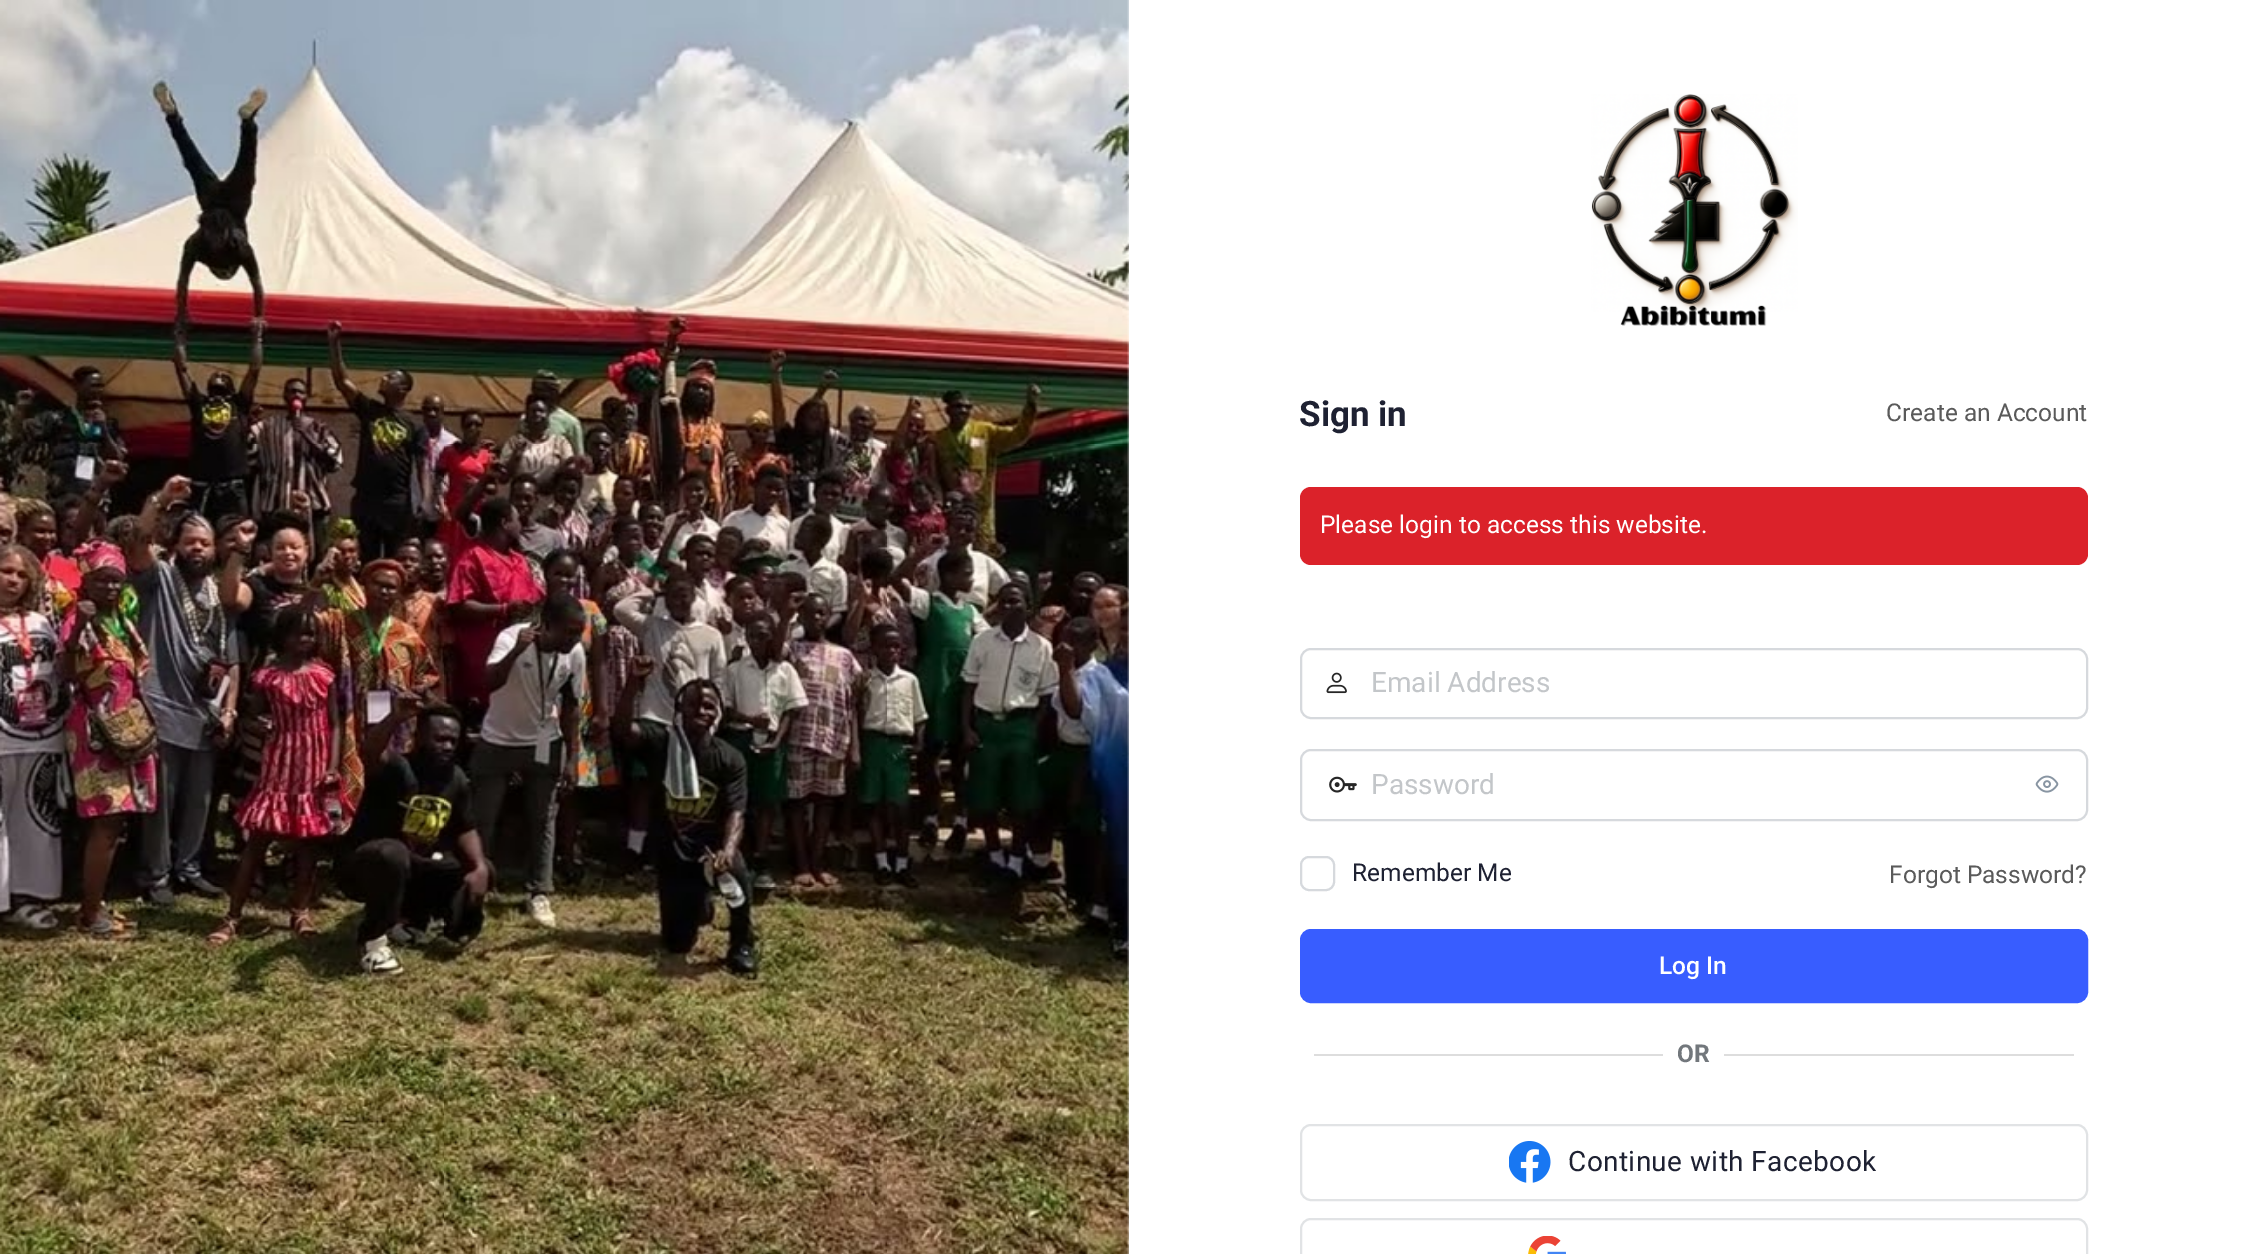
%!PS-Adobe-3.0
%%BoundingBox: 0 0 2256 1254
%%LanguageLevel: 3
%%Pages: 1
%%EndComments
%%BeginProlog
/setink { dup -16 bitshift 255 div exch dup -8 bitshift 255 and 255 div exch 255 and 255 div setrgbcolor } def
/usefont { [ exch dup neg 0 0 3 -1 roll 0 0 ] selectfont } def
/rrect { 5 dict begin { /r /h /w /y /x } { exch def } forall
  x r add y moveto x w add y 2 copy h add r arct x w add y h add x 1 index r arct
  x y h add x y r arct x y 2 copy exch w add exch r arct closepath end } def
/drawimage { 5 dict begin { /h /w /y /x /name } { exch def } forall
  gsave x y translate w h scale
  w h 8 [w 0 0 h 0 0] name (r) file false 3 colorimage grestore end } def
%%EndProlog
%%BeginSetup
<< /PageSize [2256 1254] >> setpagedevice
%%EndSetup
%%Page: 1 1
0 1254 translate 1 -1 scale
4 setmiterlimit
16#FFFFFF setink
0 0 2256 1254 rectfill
(img1.raw) 0 0 1129 1254 drawimage
(img2.raw) 1591 94 207 232 drawimage
/Roboto-Bold 35 usefont
16#1E2132 setink
1299 426 moveto (Sign in) show
/Roboto-Regular 24.5 usefont
16#5A5A5A setink
1886 421 moveto (Create an Account) show
16#DB222A setink
1300 487 788 78 11 rrect fill
16#FFFFFF setink
1320 533 moveto (Please login to access this website.) show
16#D6D9DD setink
2 setlinewidth
1301 649 786 69 10 rrect stroke
(img3.raw) 1326 672 21 22 drawimage
/Roboto-Regular 28 usefont
16#C3C6C9 setink
1371 692 moveto (Email Address) show
16#D6D9DD setink
1301 750 786 70 10 rrect stroke
(img4.raw) 1329 776 28 17 drawimage
16#C3C6C9 setink
1371 794 moveto (Password) show
(img5.raw) 2035 775 24 18 drawimage
16#D6D9DD setink
1301 857 33 33 8 rrect stroke
/Roboto-Regular 24.5 usefont
16#1E2132 setink
1352 881 moveto (Remember Me) show
16#5A5A5A setink
1889 883 moveto (Forgot Password?) show
16#385DFF setink
1301 930 786 72 10 rrect gsave fill grestore
stroke
/Roboto-Medium 24.5 usefont
16#FFFFFF setink
1659 974 moveto (Log In) show
16#DDDDDD setink
1314 1054 349 2 rectfill
/Roboto-Bold 24.5 usefont
16#72777C setink
1677 1062 moveto (OR) show
16#DDDDDD setink
1724 1054 350 2 rectfill
16#E1E3E5 setink
1301 1125 786 75 10 rrect stroke
(img6.raw) 1509 1141 42 42 drawimage
/Roboto-Regular 28 usefont
16#1E2132 setink
1568 1171 moveto 0.4 0 (Continue with Facebook) ashow
16#E1E3E5 setink
1301 1219 786 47 10 rrect stroke
(img7.raw) 1528 1236 38 18 drawimage
showpage
%%EOF
